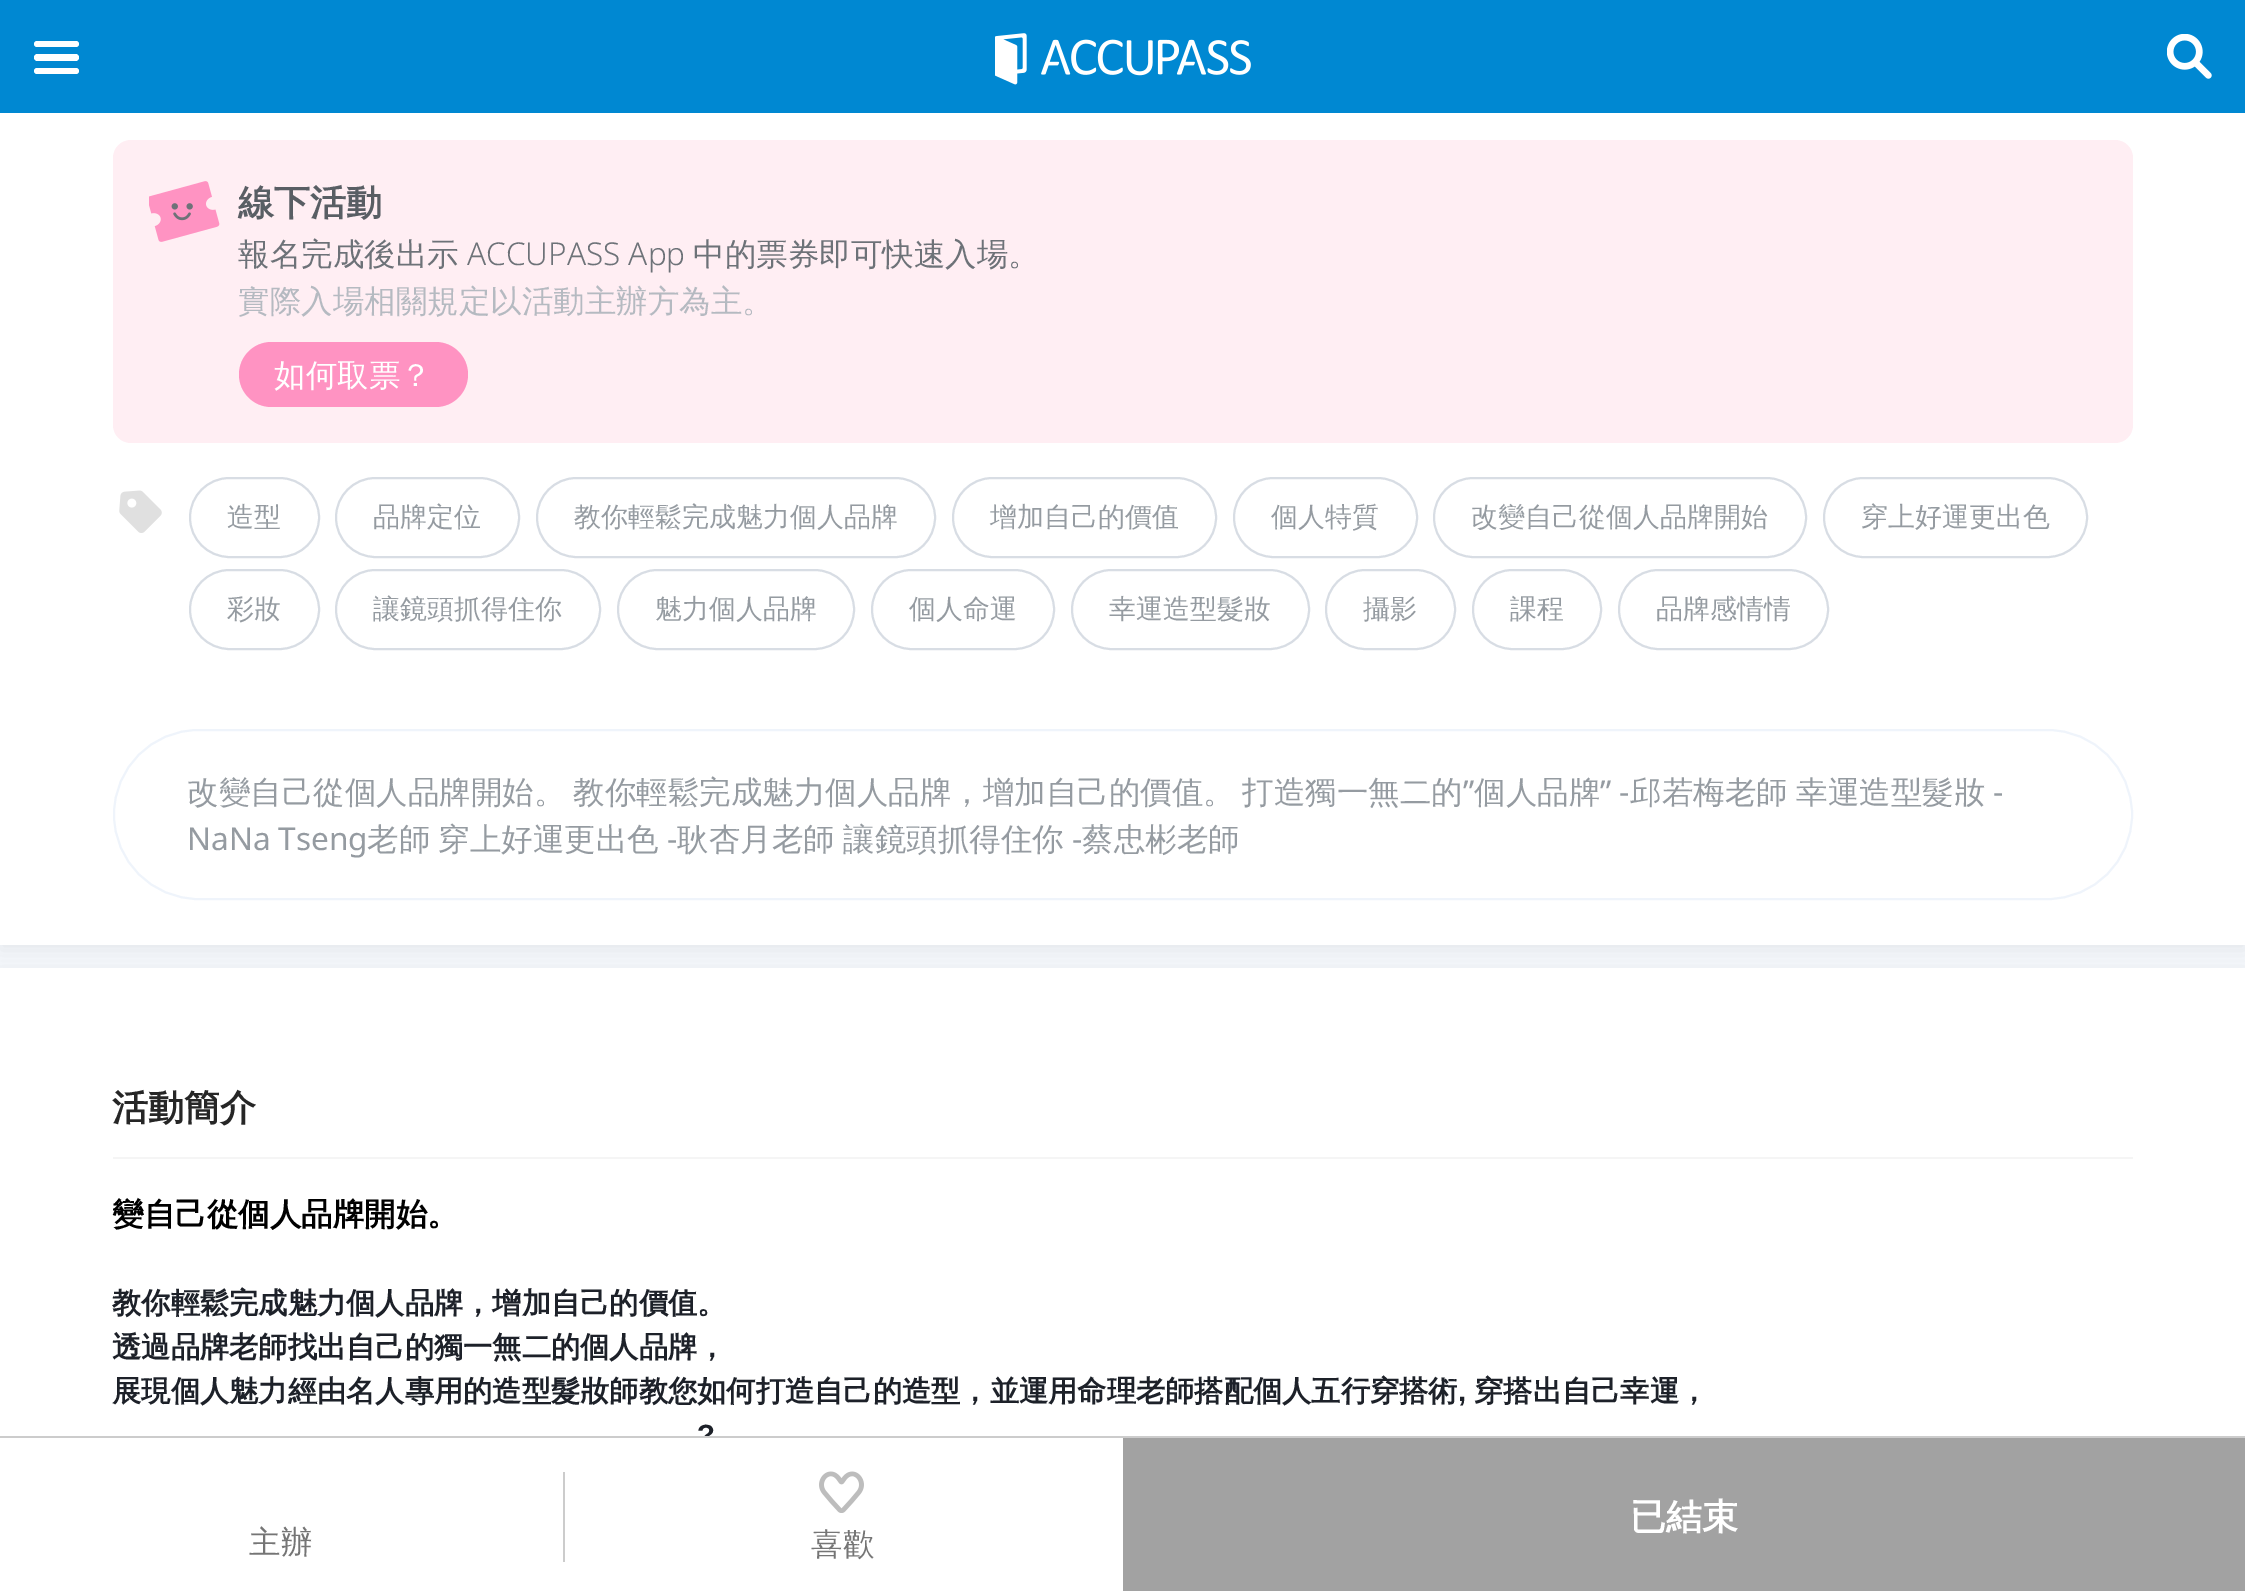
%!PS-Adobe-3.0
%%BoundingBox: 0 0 2245 1591
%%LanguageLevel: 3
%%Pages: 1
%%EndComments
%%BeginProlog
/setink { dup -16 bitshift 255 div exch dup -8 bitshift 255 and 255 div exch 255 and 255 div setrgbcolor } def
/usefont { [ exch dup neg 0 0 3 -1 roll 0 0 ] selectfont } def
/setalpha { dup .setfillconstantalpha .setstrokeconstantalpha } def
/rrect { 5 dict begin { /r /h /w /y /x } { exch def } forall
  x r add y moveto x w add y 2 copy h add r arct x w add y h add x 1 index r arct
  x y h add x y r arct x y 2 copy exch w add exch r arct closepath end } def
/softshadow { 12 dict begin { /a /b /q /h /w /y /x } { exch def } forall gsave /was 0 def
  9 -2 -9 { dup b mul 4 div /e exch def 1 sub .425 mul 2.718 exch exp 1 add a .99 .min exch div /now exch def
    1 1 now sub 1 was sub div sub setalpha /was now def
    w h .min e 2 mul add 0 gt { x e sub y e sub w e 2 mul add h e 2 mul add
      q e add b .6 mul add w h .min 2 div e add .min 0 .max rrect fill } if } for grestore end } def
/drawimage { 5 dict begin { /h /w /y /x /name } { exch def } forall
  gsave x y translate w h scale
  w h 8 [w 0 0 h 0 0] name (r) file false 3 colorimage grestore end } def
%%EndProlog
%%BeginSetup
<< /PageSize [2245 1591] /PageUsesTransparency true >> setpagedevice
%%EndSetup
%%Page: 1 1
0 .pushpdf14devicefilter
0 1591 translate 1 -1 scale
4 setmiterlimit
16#F8FBFF setink
0 0 2245 1591 rectfill
16#6B6B6B setink
0 -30 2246 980 0 10 0.14 softshadow
16#0088D2 setink
0 0 2245 113 rectfill
(img1.raw) 995 33 256 52 drawimage
16#FFFFFF setink
34 41 45 6 3 rrect fill
34 54 45 7 3.5 rrect fill
34 68 45 6 3 rrect fill
(img2.raw) 2167 34 45 45 drawimage
0 113 2245 832 rectfill
16#FFEEF3 setink
113 140 2020 303 18 rrect fill
(img3.raw) 149 181 71 61 drawimage
/WenQuanYiZenHei-Bold 36 usefont
16#595E64 setink
238 215 moveto (線下活動) show
/WenQuanYiZenHei-Medium 31.5 usefont
16#6D7278 setink
238 265 moveto (報名完成後出示) show
/NotoSans-Light 31.5 usefont
467 265 moveto (ACCUPASS App) show
/WenQuanYiZenHei-Medium 31.5 usefont
693 265 moveto (中的票券即可快速入場。) show
16#B5BAC1 setink
238 312 moveto (實際入場相關規定以活動主辦方為主。) show
16#FF93C2 setink
239 342 229 65 32.5 rrect fill
16#FFFFFF setink
274 386 moveto (如何取票？) show
(img4.raw) 119 490 43 43 drawimage
16#D8DDE4 setink
2 setlinewidth
190 478 129 79 39.5 rrect stroke
/WenQuanYiZenHei-Medium 27 usefont
16#959BA1 setink
227 526 moveto (造型) show
16#D8DDE4 setink
336 478 183 79 39.5 rrect stroke
16#959BA1 setink
373 526 moveto (品牌定位) show
16#D8DDE4 setink
537 478 398 79 39.5 rrect stroke
16#959BA1 setink
574 526 moveto (教你輕鬆完成魅力個人品牌) show
16#D8DDE4 setink
953 478 263 79 39.5 rrect stroke
16#959BA1 setink
990 526 moveto (增加自己的價值) show
16#D8DDE4 setink
1234 478 183 79 39.5 rrect stroke
16#959BA1 setink
1271 526 moveto (個人特質) show
16#D8DDE4 setink
1434 478 372 79 39.5 rrect stroke
16#959BA1 setink
1471 526 moveto (改變自己從個人品牌開始) show
16#D8DDE4 setink
1824 478 263 79 39.5 rrect stroke
16#959BA1 setink
1861 526 moveto (穿上好運更出色) show
16#D8DDE4 setink
190 570 129 79 39.5 rrect stroke
16#959BA1 setink
227 618 moveto (彩妝) show
16#D8DDE4 setink
336 570 264 79 39.5 rrect stroke
16#959BA1 setink
373 618 moveto (讓鏡頭抓得住你) show
16#D8DDE4 setink
618 570 236 79 39.5 rrect stroke
16#959BA1 setink
655 618 moveto (魅力個人品牌) show
16#D8DDE4 setink
872 570 182 79 39.5 rrect stroke
16#959BA1 setink
909 618 moveto (個人命運) show
16#D8DDE4 setink
1072 570 237 79 39.5 rrect stroke
16#959BA1 setink
1109 618 moveto (幸運造型髮妝) show
16#D8DDE4 setink
1326 570 129 79 39.5 rrect stroke
16#959BA1 setink
1363 618 moveto (攝影) show
16#D8DDE4 setink
1473 570 128 79 39.5 rrect stroke
16#959BA1 setink
1510 618 moveto (課程) show
16#D8DDE4 setink
1619 570 209 79 39.5 rrect stroke
16#959BA1 setink
1656 618 moveto (品牌感情情) show
16#EFF4FB setink
114 730 2018 169 84.5 rrect stroke
/WenQuanYiZenHei-Medium 31.5 usefont
16#959BA1 setink
[
    [(改變自己從個人品牌開始。) 187 803]
    [(教你輕鬆完成魅力個人品牌，增加自己的價值。) 573 803]
    [(打造獨一無二的) 1242 803]
] { aload pop moveto show } forall
/NotoSans-Regular 31.5 usefont
1463 803 moveto (”) show
/WenQuanYiZenHei-Medium 31.5 usefont
1474 803 moveto (個人品牌) show
/NotoSans-Regular 31.5 usefont
1600 803 moveto (” -) show
/WenQuanYiZenHei-Medium 31.5 usefont
1630 803 moveto (邱若梅老師) show
1796 803 moveto (幸運造型髮妝) show
/NotoSans-Regular 31.5 usefont
1993 803 moveto (-) show
187 850 moveto (NaNa Tseng) show
/WenQuanYiZenHei-Medium 31.5 usefont
367 850 moveto (老師) show
438 850 moveto (穿上好運更出色) show
/NotoSans-Regular 31.5 usefont
667 850 moveto (-) show
/WenQuanYiZenHei-Medium 31.5 usefont
677 850 moveto (耿杏月老師) show
843 850 moveto (讓鏡頭抓得住你) show
/NotoSans-Regular 31.5 usefont
1072 850 moveto (-) show
/WenQuanYiZenHei-Medium 31.5 usefont
1082 850 moveto (蔡忠彬老師) show
16#6B6B6B setink
0 972 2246 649 0 10 0.14 softshadow
16#FFFFFF setink
0 968 2245 468 rectfill
16#F5F5F5 setink
113 1157 2020 2 rectfill
/WenQuanYiZenHei-Bold 36 usefont
16#262626 setink
112 1120 moveto (活動簡介) show
/WenQuanYiZenHei-Bold 31.5 usefont
16#000000 setink
112 1225 moveto (變自己從個人品牌開始。) show
/WenQuanYiZenHei-Bold 29.25 usefont
16#1D2129 setink
[
    [(教你輕鬆完成魅力個人品牌，增加自己的價值。) 112 1313]
    [(透過品牌老師找出自己的獨一無二的個人品牌，) 112 1357]
    [(展現個人魅力經由名人專用的造型髮妝師教您如何打造自己的造型，並運用命理老師搭配個人五行穿搭術) 112 1401]
] { aload pop moveto show } forall
/LiberationSans-Bold 29.25 usefont
1458 1401 moveto (,) show
/WenQuanYiZenHei-Bold 29.25 usefont
1474 1401 moveto (穿搭出自己幸運，) show
/LiberationSans-Bold 29.25 usefont
697 1445 moveto (?) show
[
    [0 1438 1123 153 16#FFFFFF]
    [0 1436 2245 2 16#CCCCCC]
    [1123 1438 1122 153 16#A2A2A2]
] { aload pop setink rectfill } forall
/WenQuanYiZenHei-Bold 36 usefont
16#FFFFFF setink
1630 1529 moveto (已結束) show
/WenQuanYiZenHei-Medium 31.5 usefont
16#757575 setink
249 1553 moveto (主辦) show
16#CCCCCC setink
563 1472 2 90 rectfill
(img5.raw) 819 1471 45 42 drawimage
16#757575 setink
811 1555 moveto (喜歡) show
.poppdf14devicefilter showpage
%%EOF
